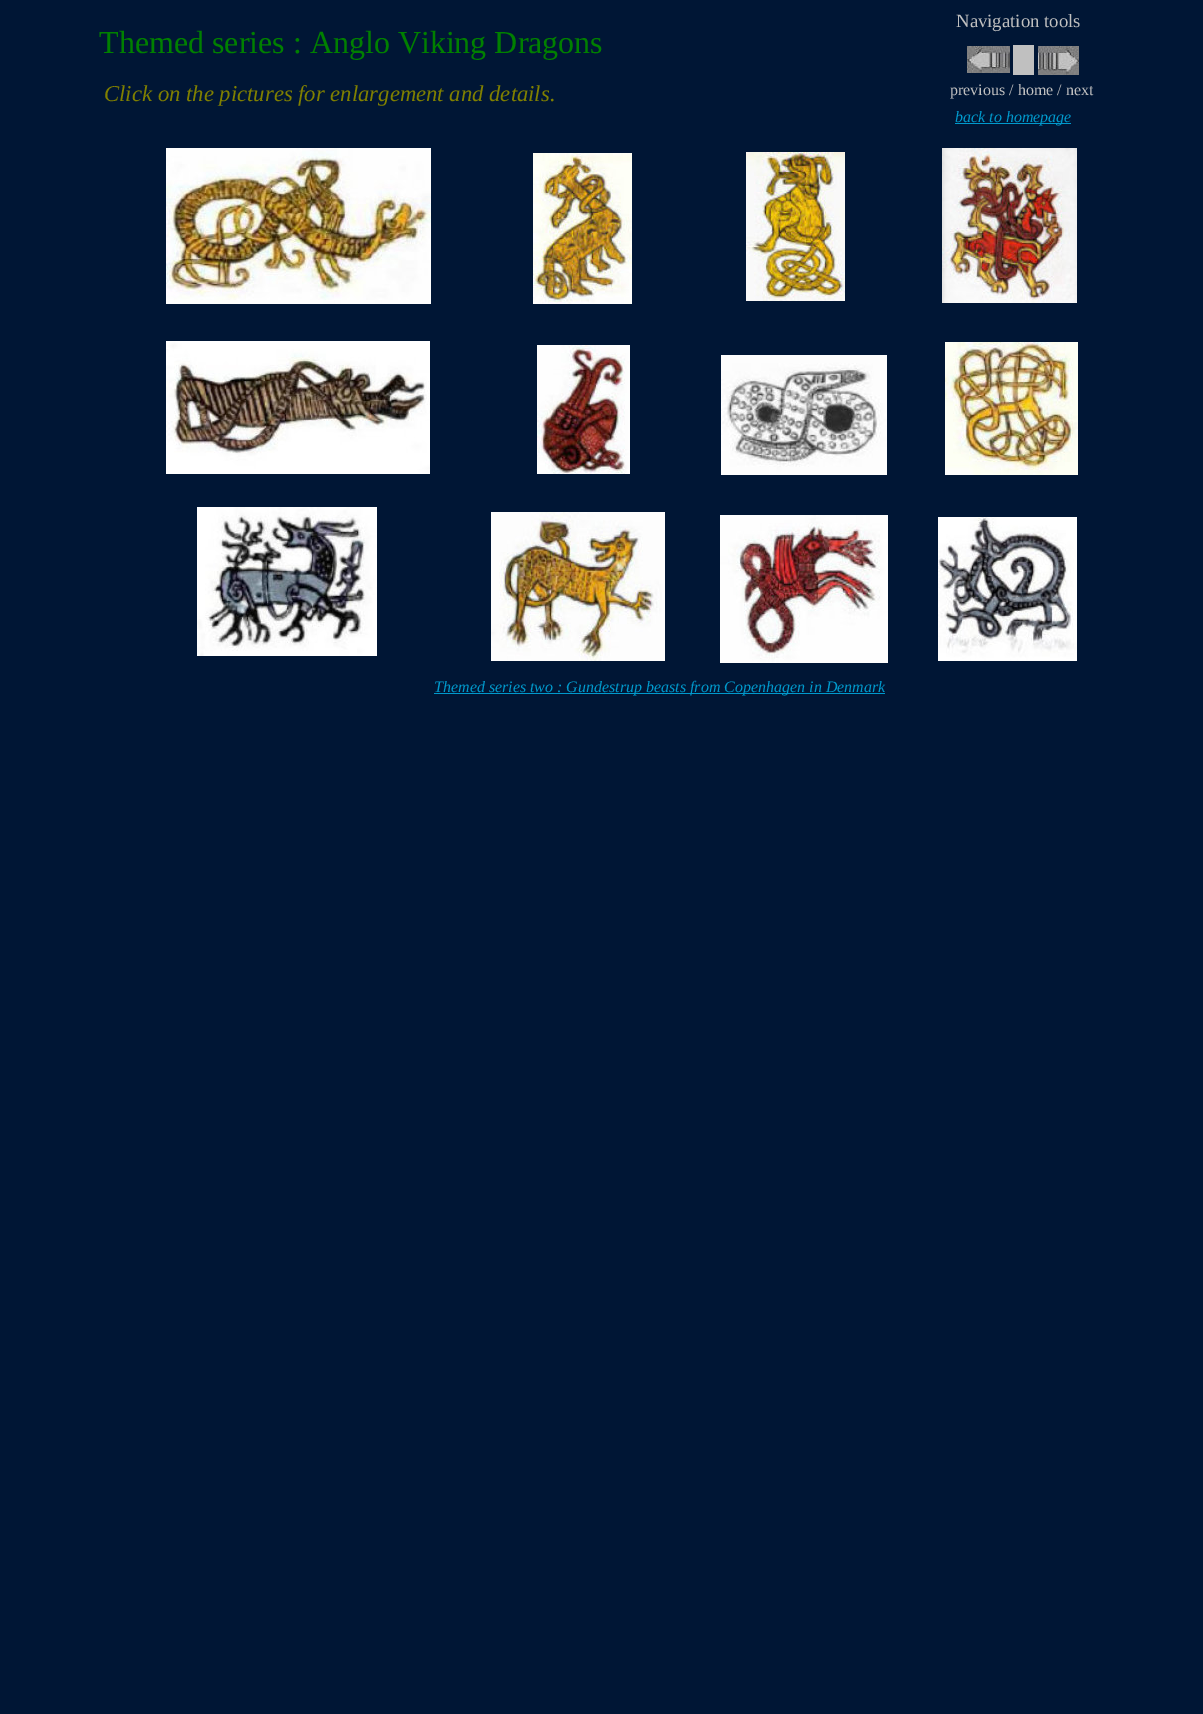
%!PS-Adobe-3.0
%%BoundingBox: 0 0 1203 1714
%%LanguageLevel: 3
%%Pages: 1
%%EndComments
%%BeginProlog
/setink { dup -16 bitshift 255 div exch dup -8 bitshift 255 and 255 div exch 255 and 255 div setrgbcolor } def
/usefont { [ exch dup neg 0 0 3 -1 roll 0 0 ] selectfont } def
/drawimage { 5 dict begin { /h /w /y /x /name } { exch def } forall
  gsave x y translate w h scale
  w h 8 [w 0 0 h 0 0] name (r) file false 3 colorimage grestore end } def
%%EndProlog
%%BeginSetup
<< /PageSize [1203 1714] >> setpagedevice
%%EndSetup
%%Page: 1 1
0 1714 translate 1 -1 scale
4 setmiterlimit
16#001635 setink
0 0 1203 1714 rectfill
/LiberationSerif-Regular 18.75 usefont
16#C0C0C0 setink
956 27 moveto (Navigation tools) show
/LiberationSerif-Regular 32 usefont
16#008000 setink
99 53 moveto (Themed series : Anglo Viking Dragons) show
(img1.raw) 967 46 43 27 drawimage
16#C0C0C0 setink
1013 45 21 30 rectfill
(img2.raw) 1038 46 41 29 drawimage
/LiberationSerif-Italic 22.7 usefont
16#808000 setink
104 101 moveto (Click on the pictures for enlargement and details.) show
/LiberationSerif-Regular 16 usefont
16#C0C0C0 setink
950 95 moveto (previous / home / next) show
16#0099CC setink
955 123 116 1 rectfill
/LiberationSerif-Italic 16 usefont
955 122 moveto (back to homepage) show
(img3.raw) 166 148 265 156 drawimage
(img4.raw) 533 153 99 151 drawimage
(img5.raw) 746 152 99 149 drawimage
(img6.raw) 942 148 135 155 drawimage
(img7.raw) 166 341 264 133 drawimage
(img8.raw) 537 345 93 129 drawimage
(img9.raw) 721 355 166 120 drawimage
(img10.raw) 945 342 133 133 drawimage
(img11.raw) 197 507 180 149 drawimage
(img12.raw) 491 512 174 149 drawimage
(img13.raw) 720 515 168 148 drawimage
(img14.raw) 938 517 139 144 drawimage
434 693 451 1 rectfill
434 692 moveto (Themed series two : Gundestrup beasts from Copenhagen in Denmark) show
showpage
%%EOF
